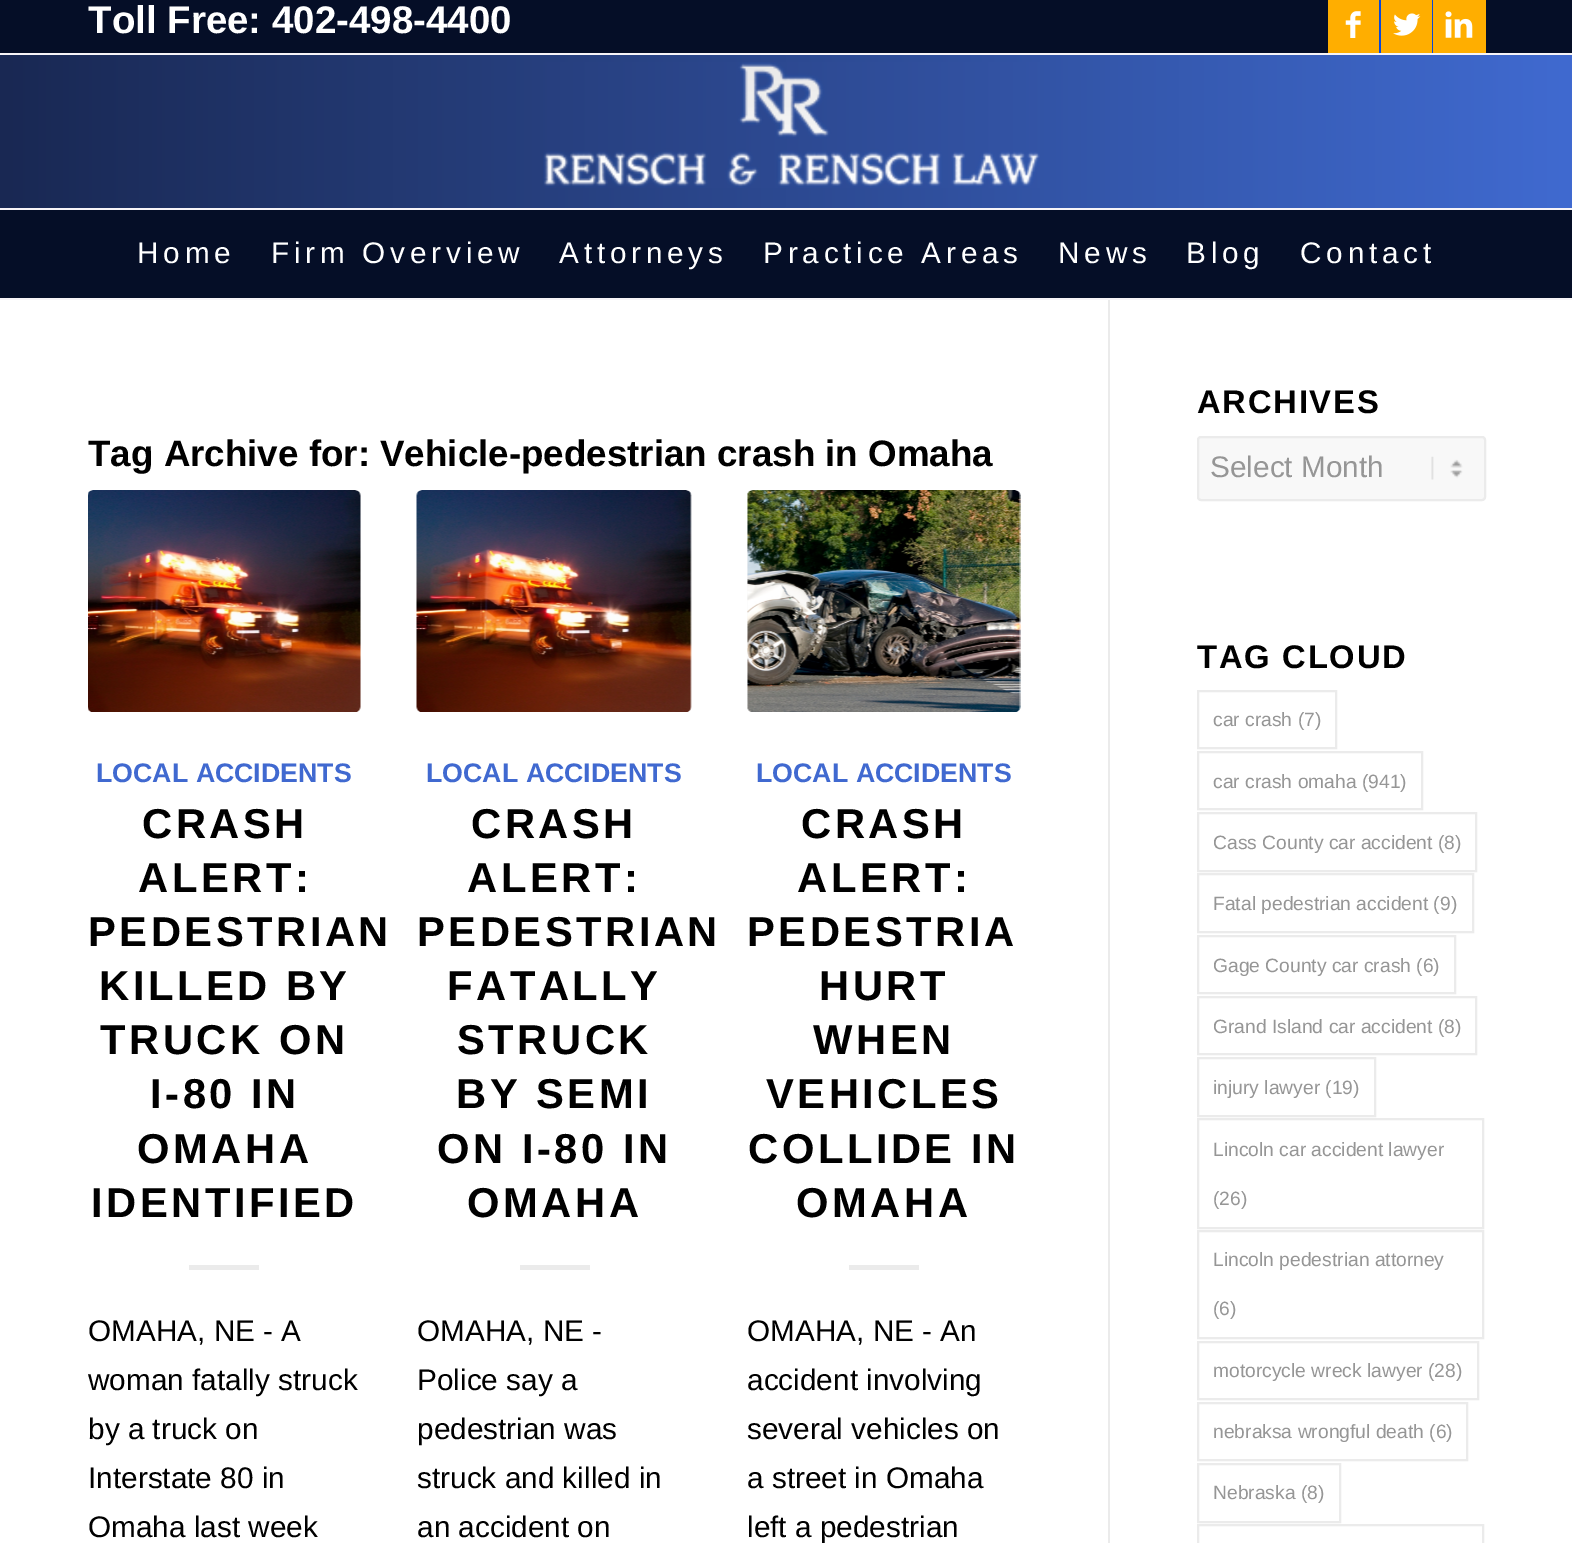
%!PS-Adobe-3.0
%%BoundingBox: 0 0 1572 1543
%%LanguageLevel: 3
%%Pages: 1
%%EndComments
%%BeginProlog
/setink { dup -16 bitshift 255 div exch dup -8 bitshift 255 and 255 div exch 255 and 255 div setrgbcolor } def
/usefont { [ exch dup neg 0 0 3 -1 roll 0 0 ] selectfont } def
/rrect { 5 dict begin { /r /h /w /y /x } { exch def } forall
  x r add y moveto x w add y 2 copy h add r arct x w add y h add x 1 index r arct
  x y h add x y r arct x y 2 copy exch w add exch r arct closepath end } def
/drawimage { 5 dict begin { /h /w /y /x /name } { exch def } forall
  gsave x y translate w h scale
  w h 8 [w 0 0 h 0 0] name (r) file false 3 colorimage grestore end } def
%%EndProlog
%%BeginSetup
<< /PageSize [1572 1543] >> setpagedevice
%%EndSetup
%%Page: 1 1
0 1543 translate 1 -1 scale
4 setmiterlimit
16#FFFFFF setink
0 0 1572 1543 rectfill
16#050E27 setink
0 0 1572 53 rectfill
16#F7F4F7 setink
0 53 1572 2 rectfill
/LiberationSans-Bold 38.5 usefont
16#FFFFFF setink
88 33 moveto (Toll Free: 402-498-4400) show
16#FFAE00 setink
1328 0 51 53 rectfill
16#0948DB setink
1379 0 2 53 rectfill
(img1.raw) 1345 11 16 27 drawimage
16#FFAE00 setink
1381 0 51 53 rectfill
16#0948DB setink
1432 0 1 53 rectfill
(img2.raw) 1393 13 28 23 drawimage
16#FFAE00 setink
1433 0 53 53 rectfill
(img3.raw) 1445 11 28 27 drawimage
gsave 0 55 moveto 1572 55 lineto 1572 208 lineto 0 208 lineto closepath clip newpath
<< /ShadingType 2 /ColorSpace /DeviceRGB /Coords [0 176 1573 176] /Extend [true true] /Function << /FunctionType 2 /Domain [0 1] /C0 [0.098 0.157 0.325] /C1 [0.251 0.416 0.816] /N 1 >> >> shfill grestore
16#EBEBEB setink
1108 298 2 1245 rectfill
16#F7F4F7 setink
0 298 1572 2 rectfill
(img4.raw) 543 62 497 126 drawimage
16#050E27 setink
0 210 1572 88 rectfill
16#F7F4F7 setink
0 208 1572 2 rectfill
/LiberationSans-Regular 29.75 usefont
16#FFFFFF setink
137 263 moveto 4.75 0 (Home) ashow
271 263 moveto 4.75 0 (Firm Overview) ashow
559 263 moveto 4.75 0 (Attorneys) ashow
763 263 moveto 4.75 0 (Practice Areas) ashow
1058 263 moveto 4.75 0 (News) ashow
1186 263 moveto 4.75 0 (Blog) ashow
1300 263 moveto 4.75 0 (Contact) ashow
/LiberationSans-Bold 36.75 usefont
16#000000 setink
88 466 moveto (Tag Archive for: Vehicle-pedestrian crash in Omaha) show
16#F8F8F8 setink
88 490 273 222 5 rrect fill
(img5.raw) 88 490 273 222 drawimage
/LiberationSans-Bold 26.75 usefont
16#4069D0 setink
96 782 moveto (LOCAL ACCIDENTS) show
/LiberationSans-Bold 41.75 usefont
16#000000 setink
142 838 moveto 3.5 0 (CRASH) ashow
138 892 moveto 3.5 0 (ALERT:) ashow
88 946 moveto 3.5 0 (PEDESTRIAN) ashow
99 1000 moveto 3.5 0 (KILLED BY) ashow
100 1054 moveto 3.5 0 (TRUCK ON) ashow
150 1108 moveto 3.5 0 (I-80 IN) ashow
137 1163 moveto 3.5 0 (OMAHA) ashow
91 1217 moveto 3.5 0 (IDENTIFIED) ashow
16#EBEBEB setink
189 1265 70 5 rectfill
/LiberationSans-Regular 29.75 usefont
16#000000 setink
[
    [(OMAHA, NE - A) 88 1341]
    [(woman fatally struck) 88 1390]
    [(by a truck on) 88 1439]
    [(Interstate 80 in) 88 1488]
    [(Omaha last week) 88 1537]
] { aload pop moveto show } forall
16#F8F8F8 setink
417 490 274 222 5 rrect fill
(img6.raw) 416 490 276 222 drawimage
/LiberationSans-Bold 26.75 usefont
16#4069D0 setink
426 782 moveto (LOCAL ACCIDENTS) show
/LiberationSans-Bold 41.75 usefont
16#000000 setink
471 838 moveto 3.5 0 (CRASH) ashow
467 892 moveto 3.5 0 (ALERT:) ashow
417 946 moveto 3.5 0 (PEDESTRIAN) ashow
447 1000 moveto 3.5 0 (FATALLY) ashow
457 1054 moveto 3.5 0 (STRUCK) ashow
456 1108 moveto 3.5 0 (BY SEMI) ashow
437 1163 moveto 3.5 0 (ON I-80 IN) ashow
467 1217 moveto 3.5 0 (OMAHA) ashow
16#EBEBEB setink
520 1265 70 5 rectfill
/LiberationSans-Regular 29.75 usefont
16#000000 setink
[
    [(OMAHA, NE -) 417 1341]
    [(Police say a) 417 1390]
    [(pedestrian was) 417 1439]
    [(struck and killed in) 417 1488]
    [(an accident on) 417 1537]
] { aload pop moveto show } forall
16#F8F8F8 setink
747 490 273 222 5 rrect fill
(img7.raw) 747 490 274 222 drawimage
/LiberationSans-Bold 26.75 usefont
16#4069D0 setink
756 782 moveto (LOCAL ACCIDENTS) show
/LiberationSans-Bold 41.75 usefont
16#000000 setink
801 838 moveto 3.5 0 (CRASH) ashow
797 892 moveto 3.5 0 (ALERT:) ashow
747 946 moveto 3.5 0 (PEDESTRIA) ashow
819 1000 moveto 3.5 0 (HURT) ashow
813 1054 moveto 3.5 0 (WHEN) ashow
766 1108 moveto 3.5 0 (VEHICLES) ashow
748 1163 moveto 3.5 0 (COLLIDE IN) ashow
796 1217 moveto 3.5 0 (OMAHA) ashow
16#EBEBEB setink
849 1265 70 5 rectfill
/LiberationSans-Regular 29.75 usefont
16#000000 setink
[
    [(OMAHA, NE - An) 747 1341]
    [(accident involving) 747 1390]
    [(several vehicles on) 747 1439]
    [(a street in Omaha) 747 1488]
    [(left a pedestrian) 747 1537]
] { aload pop moveto show } forall
/LiberationSans-Bold 32.75 usefont
1197 413 moveto 1.75 0 (ARCHIVES) ashow
16#F8F8F8 setink
1197 436 289 65 4 rrect fill
(img8.raw) 1431 456 32 24 drawimage
16#EBEBEB setink
2 setlinewidth
1198 437 287 63 3 rrect stroke
/LiberationSans-Regular 29.75 usefont
16#969696 setink
1210 477 moveto (Select Month) show
/LiberationSans-Bold 32.75 usefont
16#000000 setink
1197 668 moveto 1.75 0 (TAG CLOUD) ashow
16#EBEBEB setink
1198 691 138 57 rectstroke
/LiberationSans-Regular 19.25 usefont
16#969696 setink
1213 726 moveto (car crash \(7\)) show
16#EBEBEB setink
1198 752 224 57 rectstroke
16#969696 setink
1213 788 moveto (car crash omaha \(941\)) show
16#EBEBEB setink
1198 813 278 58 rectstroke
16#969696 setink
1213 849 moveto (Cass County car accident \(8\)) show
16#EBEBEB setink
1198 874 275 58 rectstroke
16#969696 setink
1213 910 moveto (Fatal pedestrian accident \(9\)) show
16#EBEBEB setink
1198 936 257 57 rectstroke
16#969696 setink
1213 972 moveto (Gage County car crash \(6\)) show
16#EBEBEB setink
1198 997 278 57 rectstroke
16#969696 setink
1213 1033 moveto (Grand Island car accident \(8\)) show
16#EBEBEB setink
1198 1058 177 58 rectstroke
16#969696 setink
1213 1094 moveto (injury lawyer \(19\)) show
16#EBEBEB setink
1198 1119 285 109 rectstroke
16#969696 setink
1213 1156 moveto (Lincoln car accident lawyer) show
1213 1205 moveto (\(26\)) show
16#EBEBEB setink
1198 1231 285 107 rectstroke
16#969696 setink
1213 1266 moveto (Lincoln pedestrian attorney) show
1213 1315 moveto (\(6\)) show
16#EBEBEB setink
1198 1342 280 57 rectstroke
16#969696 setink
1213 1377 moveto (motorcycle wreck lawyer \(28\)) show
16#EBEBEB setink
1198 1403 269 57 rectstroke
16#969696 setink
1213 1438 moveto (nebraksa wrongful death \(6\)) show
16#EBEBEB setink
1198 1464 142 58 rectstroke
16#969696 setink
1213 1499 moveto (Nebraska \(8\)) show
16#EBEBEB setink
1198 1525 285 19 rectstroke
showpage
%%EOF
